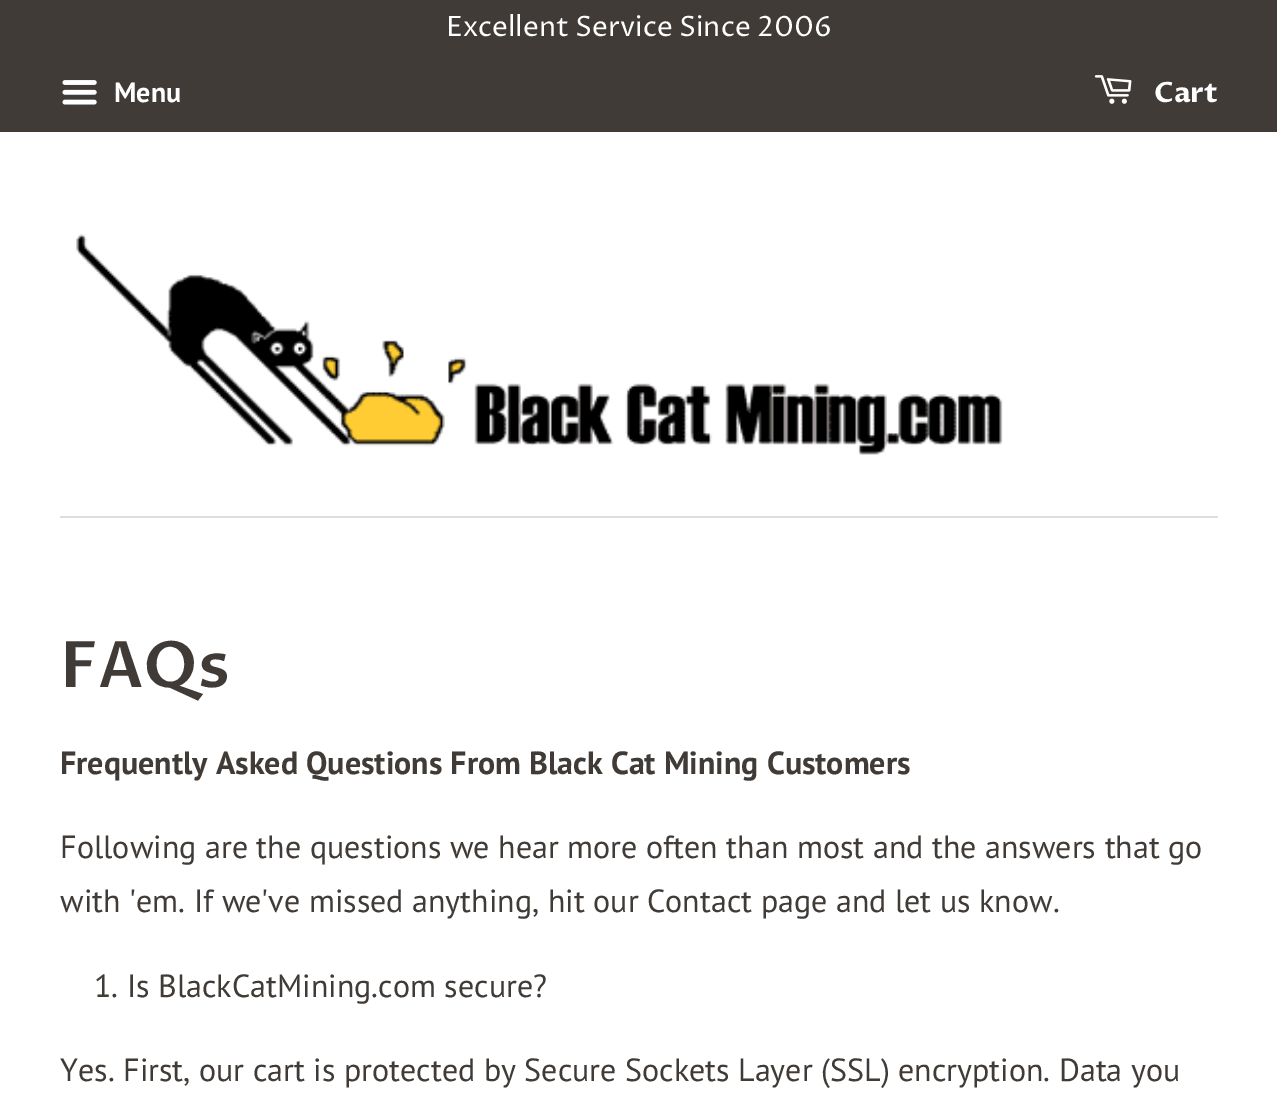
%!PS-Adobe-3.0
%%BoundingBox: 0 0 1277 1113
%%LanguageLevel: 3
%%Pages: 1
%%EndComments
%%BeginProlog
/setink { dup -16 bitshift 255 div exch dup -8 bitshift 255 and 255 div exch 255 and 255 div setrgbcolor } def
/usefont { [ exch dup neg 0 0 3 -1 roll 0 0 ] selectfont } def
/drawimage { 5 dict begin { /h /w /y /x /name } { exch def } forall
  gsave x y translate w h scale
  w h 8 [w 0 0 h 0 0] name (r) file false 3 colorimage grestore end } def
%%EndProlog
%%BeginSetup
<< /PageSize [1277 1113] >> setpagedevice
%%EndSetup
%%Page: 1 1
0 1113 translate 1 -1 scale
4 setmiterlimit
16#FFFFFF setink
0 0 1277 1113 rectfill
16#403B37 setink
0 0 1277 132 rectfill
/ProzaLibre-Regular 28 usefont
16#FFFFFF setink
446 36 moveto (Excellent Service Since 2006) show
(img1.raw) 62 80 35 25 drawimage
/PTSans-Bold 28 usefont
114 102 moveto (Menu) show
(img2.raw) 1094 75 38 29 drawimage
/ProzaLibre-Bold 28 usefont
1154 102 moveto (Cart) show
16#DDDDDD setink
60 516 1158 2 rectfill
(img3.raw) 76 234 927 221 drawimage
/ProzaLibre-SemiBold 64 usefont
16#403B37 setink
60 687 moveto (FAQs) show
/PTSans-Bold 32 usefont
60 774 moveto (Frequently Asked Questions From Black Cat Mining Customers) show
/PTSans-Regular 32 usefont
[
    [(Following are the questions we hear more often than most and the answers that go) 60 858]
    [(with 'em. If we've missed anything, hit our Contact page and let us know.) 60 912]
    [(1. Is BlackCatMining.com secure?) 94 997]
    [(Yes. First, our cart is protected by Secure Sockets Layer \(SSL\) encryption. Data you) 60 1081]
] { aload pop moveto show } forall
showpage
%%EOF
